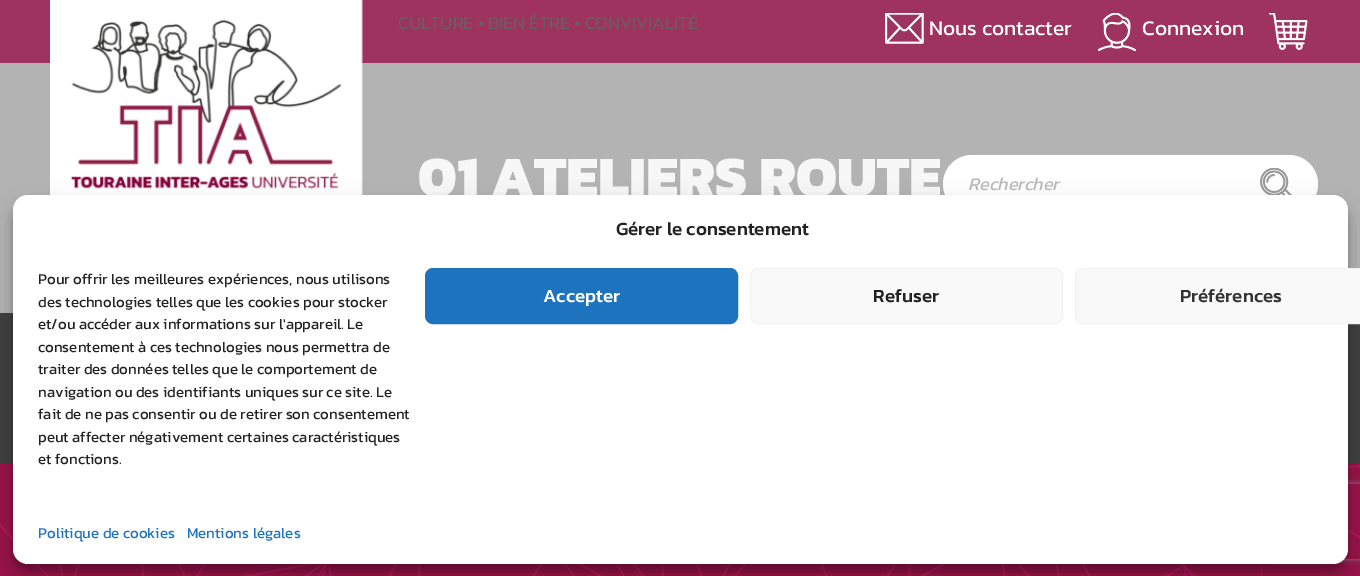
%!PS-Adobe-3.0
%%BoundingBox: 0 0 1360 576
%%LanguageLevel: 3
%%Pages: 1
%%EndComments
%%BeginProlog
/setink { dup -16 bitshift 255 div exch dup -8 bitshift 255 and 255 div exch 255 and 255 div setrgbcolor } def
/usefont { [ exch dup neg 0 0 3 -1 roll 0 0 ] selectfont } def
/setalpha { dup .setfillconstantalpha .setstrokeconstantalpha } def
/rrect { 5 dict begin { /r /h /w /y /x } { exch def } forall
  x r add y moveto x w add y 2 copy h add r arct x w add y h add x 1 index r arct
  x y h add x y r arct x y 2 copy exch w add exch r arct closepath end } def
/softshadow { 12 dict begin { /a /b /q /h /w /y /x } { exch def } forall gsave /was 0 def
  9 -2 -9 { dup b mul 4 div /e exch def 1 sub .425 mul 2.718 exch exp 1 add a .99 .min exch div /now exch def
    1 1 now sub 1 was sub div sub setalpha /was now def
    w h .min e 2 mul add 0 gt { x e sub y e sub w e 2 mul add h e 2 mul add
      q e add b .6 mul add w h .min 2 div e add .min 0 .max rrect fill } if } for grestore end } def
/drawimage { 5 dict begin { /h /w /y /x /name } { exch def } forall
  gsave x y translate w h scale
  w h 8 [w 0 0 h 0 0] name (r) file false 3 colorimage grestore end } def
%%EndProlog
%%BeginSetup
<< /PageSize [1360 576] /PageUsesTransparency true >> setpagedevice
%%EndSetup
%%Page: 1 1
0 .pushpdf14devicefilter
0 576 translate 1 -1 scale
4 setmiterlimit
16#B3B3B3 setink
0 0 1360 576 rectfill
16#9D335E setink
0 0 1360 63 rectfill
(img1.raw) 50 0 313 195 drawimage
/Kanit-Light 18 usefont
16#636363 setink
398 29 moveto (CULTURE • BIEN ÊTRE • CONVIVIALITÉ) show
(img2.raw) 885 13 39 31 drawimage
/Kanit-Regular 21 usefont
16#FFFFFF setink
929 35 moveto (Nous contacter) show
(img3.raw) 1098 13 38 38 drawimage
1142 35 moveto (Connexion) show
(img4.raw) 1269 13 39 37 drawimage
/Kanit-ExtraBold 57.5 usefont
16#F7F7F7 setink
418 196 moveto (01 ATELIERS ROUTE) show
16#FFFFFF setink
943 155 375 58 29 rrect fill
/Kanit-Italic 18 usefont
16#BABABA setink
968 190 moveto (Rechercher) show
(img5.raw) 1260 168 32 27 drawimage
16#404041 setink
0 313 1360 151 rectfill
(img6.raw) 0 464 1360 112 drawimage
16#000000 setink
13 203 1335 368 15 4 0.23 softshadow
13 208 1335 368 15 12.5 0.19 softshadow
gsave
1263 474 moveto 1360 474 lineto 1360 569 lineto 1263 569 lineto closepath 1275.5 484 moveto 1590.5 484 lineto 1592 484 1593 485 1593 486.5 curveto 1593 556.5 lineto 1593 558 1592 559 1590.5 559 curveto 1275.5 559 lineto 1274 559 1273 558 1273 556.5 curveto 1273 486.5 lineto 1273 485 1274 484 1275.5 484 curveto closepath eoclip newpath
16#808080 setink
1273 484 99 75 2.5 3 1 softshadow
grestore
16#FFFFFF setink
13 195 1335 369 15 rrect fill
/Kanit-Medium 18.75 usefont
16#222222 setink
616 235 moveto (Gérer le consentement) show
/Kanit-Regular 15 usefont
[
    [(Pour offrir les meilleures expériences, nous utilisons) 38 284]
    [(des technologies telles que les cookies pour stocker) 38 307]
    [(et/ou accéder aux informations sur l'appareil. Le) 38 329]
    [(consentement à ces technologies nous permettra de) 38 352]
    [(traiter des données telles que le comportement de) 38 374]
    [(navigation ou des identifiants uniques sur ce site. Le) 38 397]
    [(fait de ne pas consentir ou de retirer son consentement) 38 419]
    [(peut affecter négativement certaines caractéristiques) 38 442]
    [(et fonctions.) 38 464]
] { aload pop moveto show } forall
16#1E73BE setink
425.5 268.5 312 55 7.5 rrect gsave fill grestore
stroke
/Kanit-Medium 18.75 usefont
16#FFFFFF setink
543 302 moveto (Accepter) show
16#F9F9F9 setink
750.5 268.5 312 55 7.5 rrect gsave fill grestore
16#F2F2F2 setink
stroke
16#222222 setink
873 302 moveto (Refuser) show
16#F9F9F9 setink
1075.5 268.5 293 55 7.5 rrect gsave fill grestore
16#F2F2F2 setink
stroke
16#333333 setink
1180 302 moveto (Préférences) show
/Kanit-Regular 15 usefont
16#1E73BE setink
38 538 moveto (Politique de cookies) show
187 538 moveto (Mentions légales) show
.poppdf14devicefilter showpage
%%EOF
